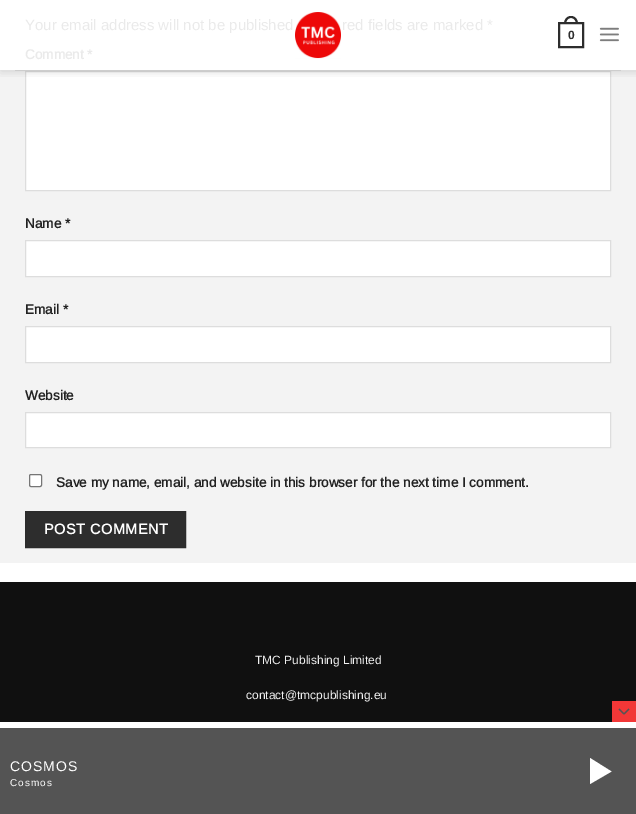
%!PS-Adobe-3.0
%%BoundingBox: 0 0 636 814
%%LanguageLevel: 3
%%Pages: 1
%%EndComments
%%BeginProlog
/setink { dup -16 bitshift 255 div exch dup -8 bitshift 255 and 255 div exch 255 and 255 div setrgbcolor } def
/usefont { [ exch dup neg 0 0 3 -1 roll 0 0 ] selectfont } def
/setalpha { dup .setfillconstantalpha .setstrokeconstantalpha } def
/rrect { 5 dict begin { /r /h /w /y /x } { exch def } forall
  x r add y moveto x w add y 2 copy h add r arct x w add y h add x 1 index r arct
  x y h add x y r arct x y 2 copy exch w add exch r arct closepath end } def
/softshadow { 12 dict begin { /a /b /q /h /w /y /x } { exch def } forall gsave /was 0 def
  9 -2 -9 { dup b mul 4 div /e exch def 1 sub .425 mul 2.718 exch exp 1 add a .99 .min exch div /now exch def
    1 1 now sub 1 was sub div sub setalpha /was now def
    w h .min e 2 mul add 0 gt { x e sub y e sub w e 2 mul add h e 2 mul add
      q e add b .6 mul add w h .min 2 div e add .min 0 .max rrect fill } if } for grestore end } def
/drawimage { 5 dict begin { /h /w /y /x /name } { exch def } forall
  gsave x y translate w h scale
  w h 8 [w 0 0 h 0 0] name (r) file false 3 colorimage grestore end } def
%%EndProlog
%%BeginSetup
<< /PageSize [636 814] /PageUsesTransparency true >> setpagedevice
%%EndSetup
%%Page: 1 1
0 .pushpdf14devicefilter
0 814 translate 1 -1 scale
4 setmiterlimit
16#FFFFFF setink
0 0 636 814 rectfill
16#F3F3F3 setink
0 70 636 493 rectfill
/Arimo-Regular 15 usefont
16#EAEAEA setink
25 30 moveto (Your email address will not be published) show
342 30 moveto (red fields are marked *) show
/Arimo-Bold 13.55 usefont
25 59 moveto (Comment *) show
16#FFFFFF setink
25.5 71.5 moveto 610.5 71.5 lineto 610.5 190.5 lineto 25.5 190.5 lineto closepath gsave fill grestore
16#DDDDDD setink
stroke
16#222222 setink
25 228 moveto (Name *) show
16#FFFFFF setink
25.5 240.5 moveto 610.5 240.5 lineto 610.5 276.5 lineto 25.5 276.5 lineto closepath gsave fill grestore
16#DDDDDD setink
stroke
16#222222 setink
25 314 moveto (Email *) show
16#FFFFFF setink
25.5 326.5 moveto 610.5 326.5 lineto 610.5 362.5 lineto 25.5 362.5 lineto closepath gsave fill grestore
16#DDDDDD setink
stroke
16#222222 setink
25 400 moveto (Website) show
16#FFFFFF setink
25.5 412.5 moveto 610.5 412.5 lineto 610.5 447.5 lineto 25.5 447.5 lineto closepath gsave fill grestore
16#DDDDDD setink
stroke
16#FFFFFF setink
29.5 474.5 12 12 1.5 rrect gsave fill grestore
16#767676 setink
stroke
16#222222 setink
56 487 moveto (Save my name, email, and website in this browser for the next time I comment.) show
16#2D2D2D setink
25.5 511.5 moveto 185.5 511.5 lineto 185.5 547.5 lineto 25.5 547.5 lineto closepath gsave fill grestore
16#2B2B2B setink
stroke
/Arimo-Bold 14.5 usefont
16#FFFFFF setink
44 534 moveto 0.5 0 (POST COMMENT) ashow
gsave
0 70 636 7 rectclip
16#000000 setink
1 1 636 70 0 5 0.15 softshadow
grestore
(img1.raw) 295 12 46 47 drawimage
16#2D2D2D setink
2 setlinewidth
559 23 24 24 rectstroke
571 16 moveto 575.5 16 578 20 578 24 curveto 564 24 lineto 564 20 566.5 16 571 16 curveto closepath 571 18 moveto 574.5 18 576 21 576 24 curveto 566 24 lineto 566 21 567.5 18 571 18 curveto closepath eofill
/LiberationSans-Bold 12 usefont
568 39 moveto (0) show
(img2.raw) 599 27 20 15 drawimage
16#CDCDCD setink
15 70 606 1 rectfill
16#101010 setink
0 582 636 140 rectfill
/Arimo-Regular 12 usefont
16#F1F1F1 setink
255 664 moveto (TMC Publishing Limited) show
246 699 moveto (contact@tmcpublishing.eu) show
16#545454 setink
0 728 636 86 rectfill
16#F23737 setink
612 701 24 21 rectfill
16#545454 setink
628.5 708.5 moveto 629.5 709.5 lineto 624.5 714.5 lineto 623.5 713.5 lineto closepath fill
618.5 709.5 moveto 619.5 708.5 lineto 624.5 713.5 lineto 623.5 714.5 lineto closepath fill
/Arimo-Regular 14 usefont
16#FFFFFF setink
10 771 moveto 1 0 (COSMOS) ashow
/Arimo-Regular 10 usefont
10 786 moveto 1 0 (Cosmos) ashow
590 758 moveto 611.5 771.5 lineto 590 784 lineto closepath fill
.poppdf14devicefilter showpage
%%EOF
